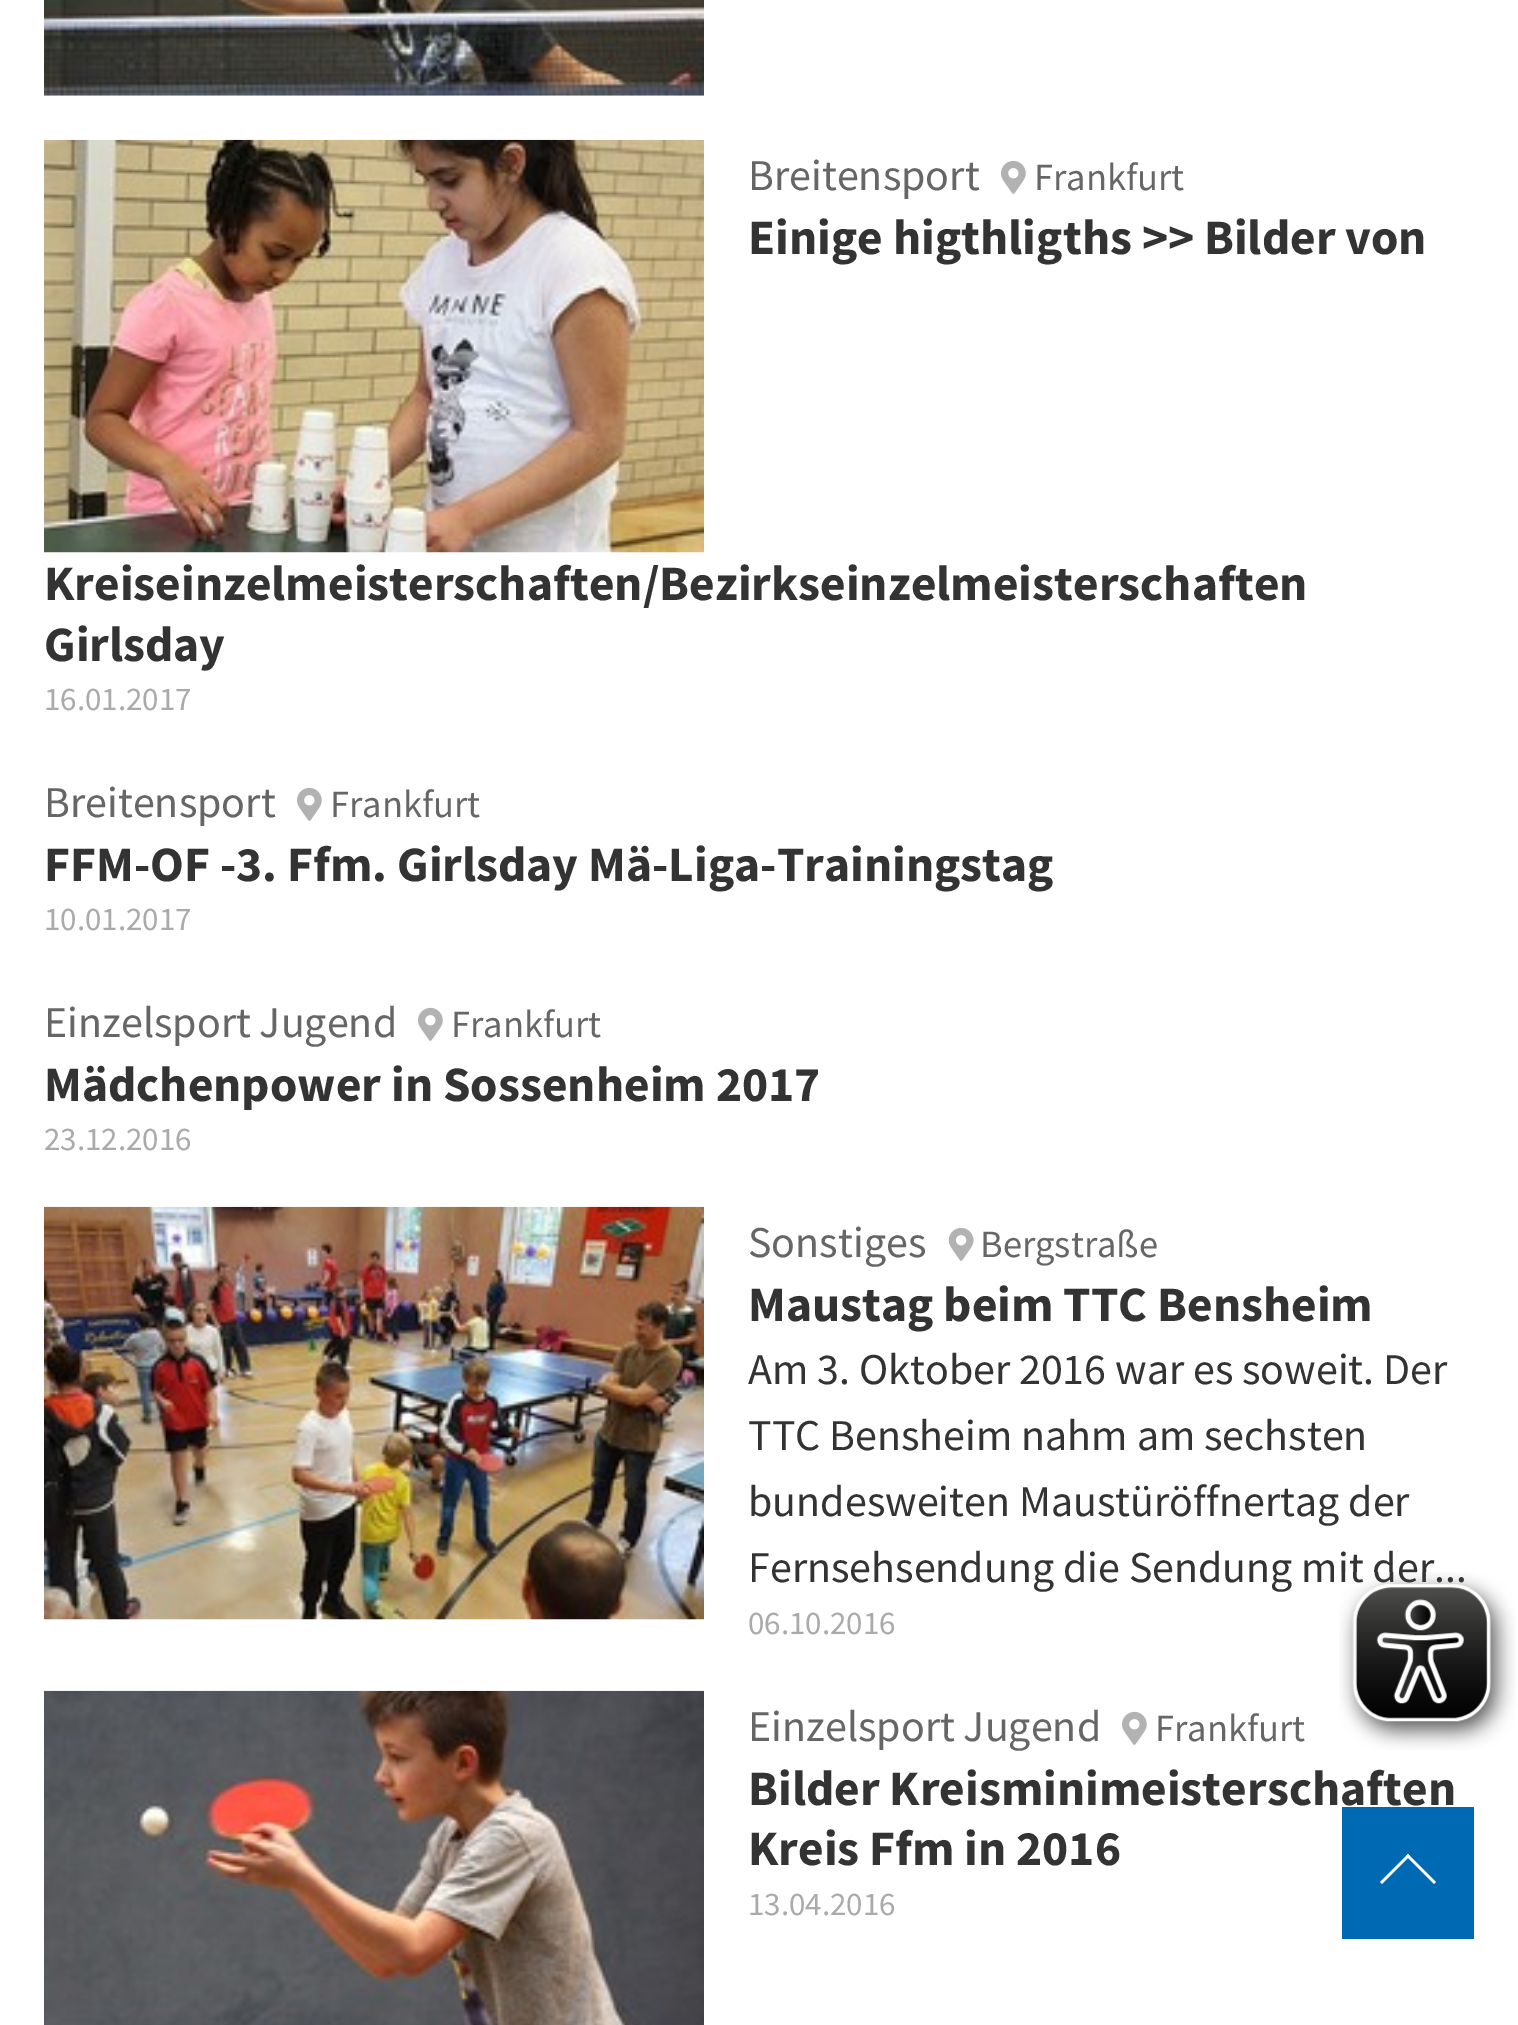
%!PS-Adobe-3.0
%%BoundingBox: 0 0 1518 2025
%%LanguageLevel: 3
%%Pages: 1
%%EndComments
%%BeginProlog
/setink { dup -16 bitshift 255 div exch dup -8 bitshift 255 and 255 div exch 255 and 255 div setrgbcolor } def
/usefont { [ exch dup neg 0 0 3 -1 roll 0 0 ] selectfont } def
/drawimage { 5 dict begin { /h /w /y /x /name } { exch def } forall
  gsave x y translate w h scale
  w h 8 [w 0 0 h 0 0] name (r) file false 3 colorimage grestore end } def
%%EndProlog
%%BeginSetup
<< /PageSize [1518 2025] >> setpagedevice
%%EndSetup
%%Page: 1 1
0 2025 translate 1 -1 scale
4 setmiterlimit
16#FFFFFF setink
0 0 1518 2025 rectfill
(img1.raw) 44 0 660 96 drawimage
(img2.raw) 44 139 660 414 drawimage
/SourceSansPro-Regular 44 usefont
16#666666 setink
748 190 moveto (Breitensport) show
(img3.raw) 1001 160 25 34 drawimage
/SourceSansPro-Regular 38.5 usefont
1034 190 moveto (Frankfurt) show
/SourceSansPro-Bold 49.5 usefont
16#333333 setink
[
    [(Einige higthligths >> Bilder von) 748 254]
    [(Kreiseinzelmeisterschaften/Bezirkseinzelmeisterschaften) 44 600]
    [(Girlsday) 44 661]
] { aload pop moveto show } forall
/SourceSansPro-Regular 33 usefont
16#AAAAAA setink
44 710 moveto (16.01.2017) show
/SourceSansPro-Regular 44 usefont
16#666666 setink
44 817 moveto (Breitensport) show
(img3.raw) 297 787 25 34 drawimage
/SourceSansPro-Regular 38.5 usefont
330 817 moveto (Frankfurt) show
/SourceSansPro-Bold 49.5 usefont
16#333333 setink
44 881 moveto (FFM-OF -3. Ffm. Girlsday Mä-Liga-Trainingstag) show
/SourceSansPro-Regular 33 usefont
16#AAAAAA setink
44 930 moveto (10.01.2017) show
/SourceSansPro-Regular 44 usefont
16#666666 setink
44 1037 moveto (Einzelsport Jugend) show
(img3.raw) 418 1007 25 34 drawimage
/SourceSansPro-Regular 38.5 usefont
451 1037 moveto (Frankfurt) show
/SourceSansPro-Bold 49.5 usefont
16#333333 setink
44 1101 moveto (Mädchenpower in Sossenheim 2017) show
/SourceSansPro-Regular 33 usefont
16#AAAAAA setink
44 1150 moveto (23.12.2016) show
(img4.raw) 44 1206 660 414 drawimage
/SourceSansPro-Regular 44 usefont
16#666666 setink
748 1257 moveto (Sonstiges) show
(img5.raw) 948 1227 26 34 drawimage
/SourceSansPro-Regular 38.5 usefont
980 1257 moveto (Bergstraße) show
/SourceSansPro-Bold 49.5 usefont
16#333333 setink
748 1321 moveto (Maustag beim TTC Bensheim) show
/SourceSansPro-Regular 44 usefont
[
    [(Am 3. Oktober 2016 war es soweit. Der) 748 1384]
    [(TTC Bensheim nahm am sechsten) 748 1450]
    [(bundesweiten Maustüröffnertag der) 748 1516]
    [(Fernsehsendung die Sendung mit der...) 748 1582]
] { aload pop moveto show } forall
/SourceSansPro-Regular 33 usefont
16#AAAAAA setink
748 1634 moveto (06.10.2016) show
(img6.raw) 44 1690 660 335 drawimage
/SourceSansPro-Regular 44 usefont
16#666666 setink
748 1741 moveto (Einzelsport Jugend) show
(img3.raw) 1122 1711 25 34 drawimage
/SourceSansPro-Regular 38.5 usefont
1155 1741 moveto (Frankfurt) show
/SourceSansPro-Bold 49.5 usefont
16#333333 setink
748 1805 moveto (Bilder Kreisminimeisterschaften) show
748 1865 moveto (Kreis Ffm in 2016) show
/SourceSansPro-Regular 33 usefont
16#AAAAAA setink
748 1915 moveto (13.04.2016) show
16#0069B4 setink
1342 1807 132 132 rectfill
16#FFFFFF setink
1408 1854 moveto 1436 1882 lineto 1434 1884 lineto 1406 1856 lineto closepath fill
1408 1854 moveto 1410 1856 lineto 1382 1884 lineto 1380 1882 lineto closepath fill
(img7.raw) 1339 1572 177 178 drawimage
showpage
%%EOF
